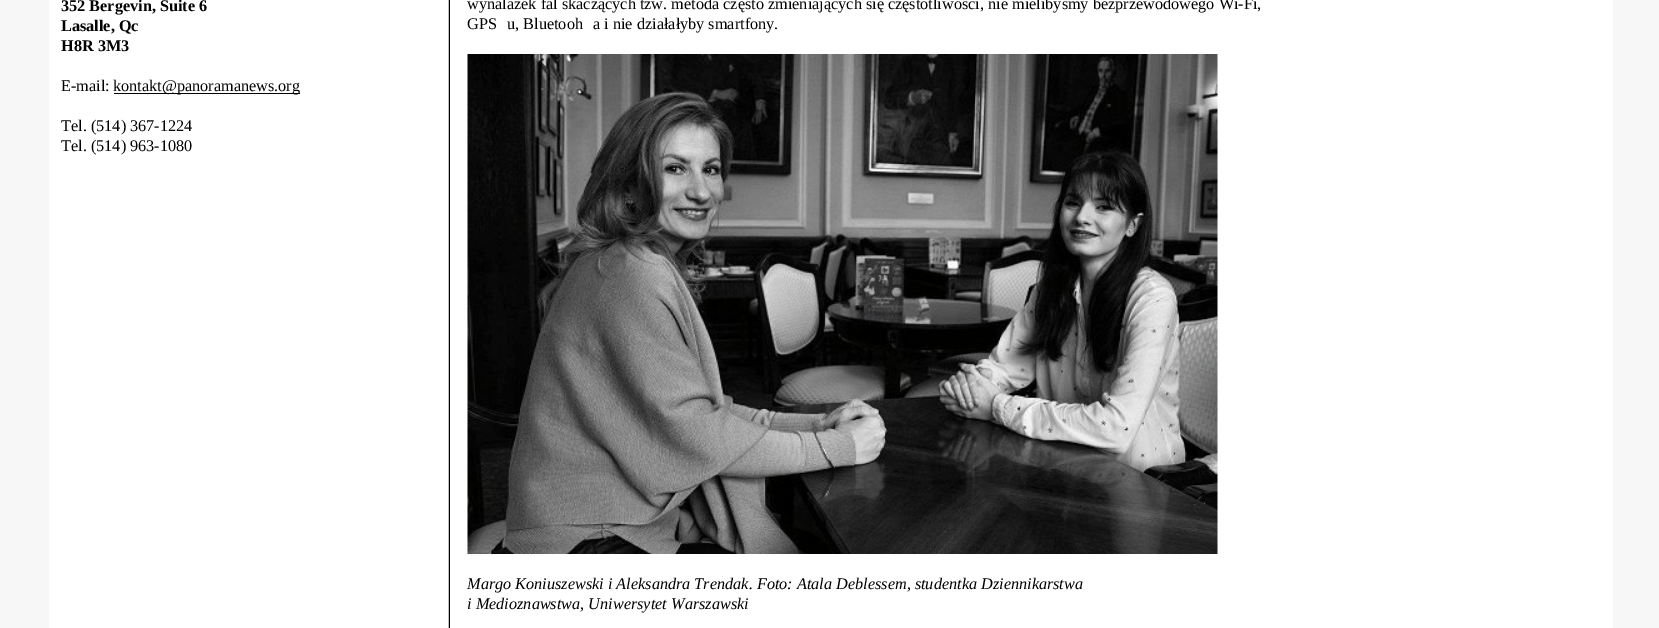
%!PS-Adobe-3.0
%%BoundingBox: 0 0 1659 628
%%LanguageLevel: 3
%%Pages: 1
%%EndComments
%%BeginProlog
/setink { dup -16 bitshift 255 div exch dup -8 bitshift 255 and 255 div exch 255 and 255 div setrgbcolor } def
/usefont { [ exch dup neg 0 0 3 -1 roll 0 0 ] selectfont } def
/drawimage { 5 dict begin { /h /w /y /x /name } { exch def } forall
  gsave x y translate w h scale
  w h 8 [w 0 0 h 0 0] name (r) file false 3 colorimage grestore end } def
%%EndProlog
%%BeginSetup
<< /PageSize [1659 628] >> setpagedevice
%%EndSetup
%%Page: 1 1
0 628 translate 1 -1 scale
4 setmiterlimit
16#F7F7F7 setink
0 0 1659 628 rectfill
16#FFFFFF setink
49 0 1564 628 rectfill
/LiberationSerif-Bold 16.25 usefont
16#000000 setink
[
    [(352 Bergevin, Suite 6) 61 11]
    [(Lasalle, Qc) 61 31]
    [(H8R 3M3) 61 51]
] { aload pop moveto show } forall
/LiberationSerif-Regular 16.25 usefont
61 91 moveto (E-mail:) show
114 93 186 1 rectfill
[
    [(kontakt@panoramanews.org) 113 91]
    [(Tel. \(514\) 367-1224) 61 131]
    [(Tel. \(514\) 963-1080) 61 151]
] { aload pop moveto show } forall
(img1.raw) 448 0 2 628 drawimage
[
    [(wynalazek fal skaczących tzw. metoda często zmieniających się częstotliwości, nie mielibyśmy bezprzewodowego Wi-Fi,) 467 9]
    [(GPS) 467 29]
    [(u, Bluetooh) 507 29]
    [(a i nie działałyby smartfony.) 593 29]
] { aload pop moveto show } forall
(img2.raw) 467 54 751 500 drawimage
/LiberationSerif-Italic 16.25 usefont
467 589 moveto (Margo Koniuszewski i Aleksandra Trendak. Foto: Atala Deblessem, studentka Dziennikarstwa) show
467 609 moveto (i Medioznawstwa, Uniwersytet Warszawski) show
showpage
%%EOF
